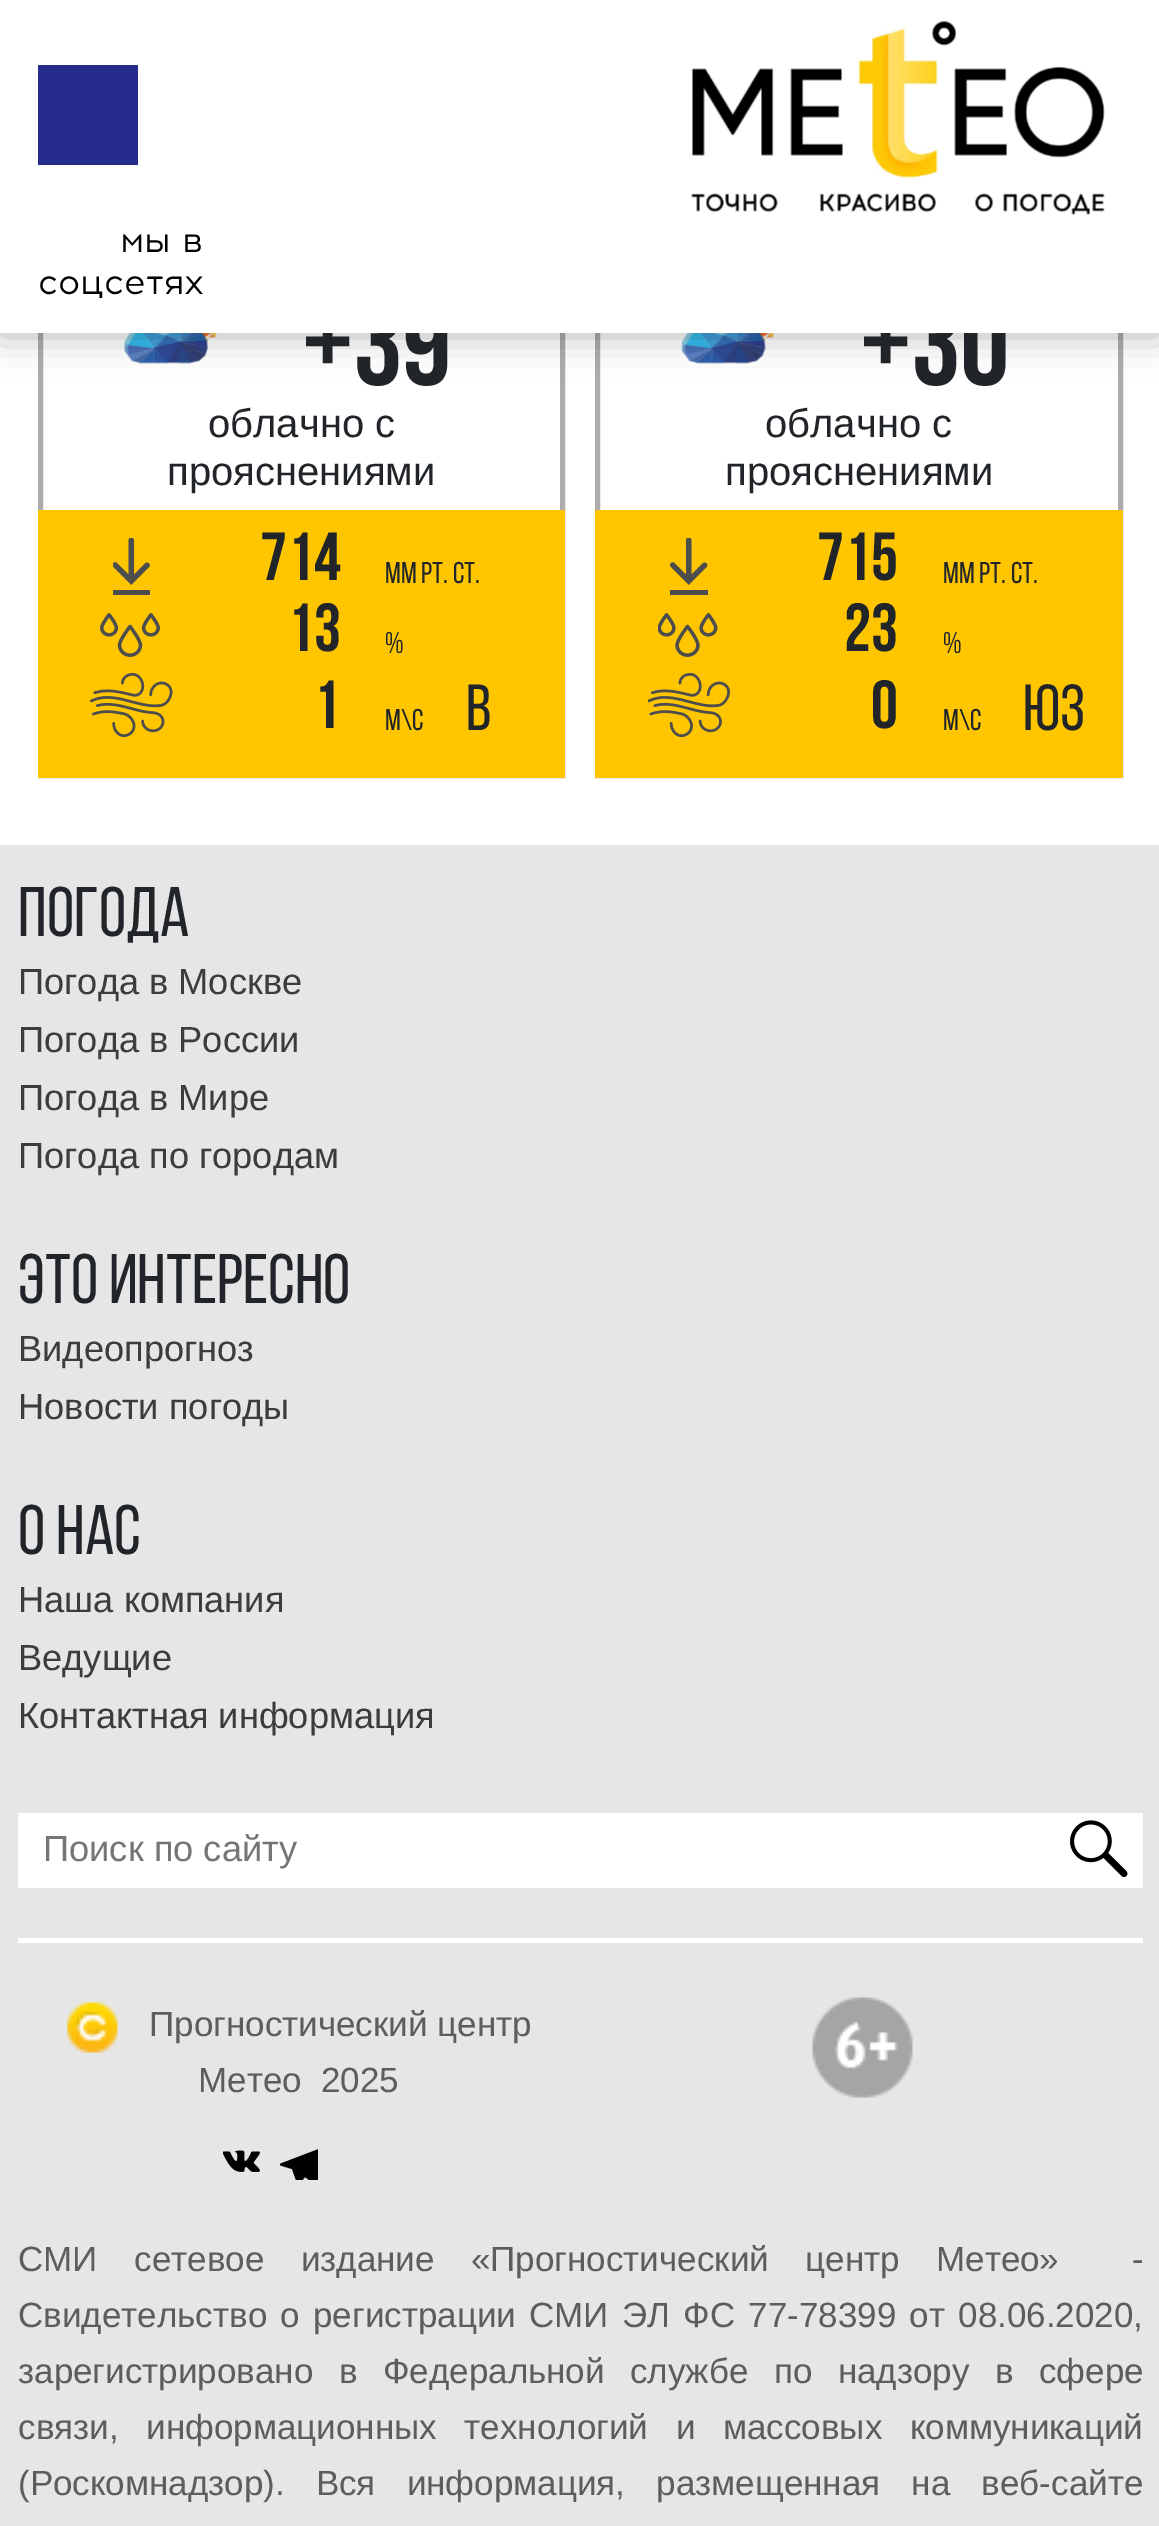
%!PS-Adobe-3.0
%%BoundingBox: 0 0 1159 2526
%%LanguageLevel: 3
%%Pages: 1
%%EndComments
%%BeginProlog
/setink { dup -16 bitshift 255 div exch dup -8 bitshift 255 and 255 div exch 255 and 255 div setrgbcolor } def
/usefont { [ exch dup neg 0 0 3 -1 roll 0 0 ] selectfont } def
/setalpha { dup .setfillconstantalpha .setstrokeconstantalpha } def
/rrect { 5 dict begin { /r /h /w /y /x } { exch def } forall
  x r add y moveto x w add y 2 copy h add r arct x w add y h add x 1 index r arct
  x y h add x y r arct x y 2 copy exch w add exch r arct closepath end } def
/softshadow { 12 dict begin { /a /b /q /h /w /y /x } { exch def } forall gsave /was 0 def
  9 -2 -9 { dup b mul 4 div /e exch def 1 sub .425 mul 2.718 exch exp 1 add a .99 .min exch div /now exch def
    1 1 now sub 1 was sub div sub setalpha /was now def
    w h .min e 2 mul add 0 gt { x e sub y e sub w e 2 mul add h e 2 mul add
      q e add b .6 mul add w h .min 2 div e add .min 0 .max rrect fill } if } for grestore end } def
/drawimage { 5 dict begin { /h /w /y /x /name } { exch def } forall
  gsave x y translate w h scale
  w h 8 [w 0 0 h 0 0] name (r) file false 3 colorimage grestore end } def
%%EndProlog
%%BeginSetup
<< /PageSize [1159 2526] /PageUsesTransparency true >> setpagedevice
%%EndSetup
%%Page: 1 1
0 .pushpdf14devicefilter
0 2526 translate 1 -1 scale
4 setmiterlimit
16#FFFFFF setink
0 0 1159 2526 rectfill
16#ACACAC setink
5 setlinewidth
40.5 172.5 522 603 rectstroke
(img2.raw) 124 333 93 31 drawimage
597.5 172.5 523 603 rectstroke
(img6.raw) 681 333 93 31 drawimage
16#000000 setink
0 3 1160 332 0 19 0.3 softshadow
/BebasNeue-Bold 125 usefont
16#212529 setink
303 385 moveto (+39) show
861 385 moveto (+30) show
16#FFFFFF setink
0 0 1159 333 rectfill
16#262B8C setink
38 65 100 100 rectfill
(img1.raw) 691 20 414 195 drawimage
/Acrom-Regular 35 usefont
16#000000 setink
120 252 moveto (мы в) show
38 294 moveto (соцсетях) show
/LiberationSans-Regular 40 usefont
16#212529 setink
208 437 moveto (облачно с) show
167 485 moveto (прояснениями) show
16#FFC600 setink
38 510 527 268 rectfill
16#4D4D4D setink
113 590 37 5 rectfill
(img3.raw) 113 538 37 47 drawimage
/BebasNeue-Bold 68 usefont
16#212529 setink
260 580 moveto (714) show
/BebasNeue-Regular 30 usefont
385 583 moveto (мм РТ. СТ.) show
(img4.raw) 100 613 60 44 drawimage
/BebasNeue-Bold 68 usefont
287 651 moveto (13) show
/BebasNeue-Regular 30 usefont
385 653 moveto (%) show
(img5.raw) 90 673 83 65 drawimage
/BebasNeue-Bold 68 usefont
313 728 moveto (1) show
/BebasNeue-Regular 30 usefont
385 730 moveto (м\\с) show
/BebasNeue-Regular 65 usefont
466 730 moveto (В) show
/LiberationSans-Regular 40 usefont
765 437 moveto (облачно с) show
725 485 moveto (прояснениями) show
16#FFC600 setink
595 510 528 268 rectfill
16#4D4D4D setink
670 590 moveto 670 595 lineto 708 595 lineto 708 535 lineto 708 590 lineto closepath fill
(img7.raw) 670 538 38 47 drawimage
/BebasNeue-Bold 68 usefont
16#212529 setink
817 580 moveto (715) show
/BebasNeue-Regular 30 usefont
943 583 moveto (мм РТ. СТ.) show
(img8.raw) 658 613 60 44 drawimage
/BebasNeue-Bold 68 usefont
844 651 moveto (23) show
/BebasNeue-Regular 30 usefont
943 653 moveto (%) show
(img9.raw) 648 673 82 65 drawimage
/BebasNeue-Bold 68 usefont
871 728 moveto (0) show
/BebasNeue-Regular 30 usefont
943 730 moveto (м\\с) show
/BebasNeue-Regular 65 usefont
1023 730 moveto (ЮЗ) show
16#E6E6E6 setink
0 845 1159 1681 rectfill
/BebasNeue-Regular 70 usefont
16#212529 setink
18 936 moveto (Погода) show
/LiberationSans-Regular 36.25 usefont
16#3C3C3C setink
[
    [(Погода в Москве) 18 994]
    [(Погода в России) 18 1052]
    [(Погода в Мире) 18 1110]
    [(Погода по городам) 18 1168]
] { aload pop moveto show } forall
/BebasNeue-Regular 70 usefont
16#212529 setink
18 1303 moveto (Это интересно) show
/LiberationSans-Regular 36.25 usefont
16#3C3C3C setink
18 1361 moveto (Видеопрогноз) show
18 1419 moveto (Новости погоды) show
/BebasNeue-Regular 70 usefont
16#212529 setink
18 1554 moveto (О НАС) show
/LiberationSans-Regular 36.25 usefont
16#3C3C3C setink
[
    [(Наша компания) 18 1612]
    [(Ведущие) 18 1670]
    [(Контактная информация) 18 1728]
] { aload pop moveto show } forall
16#FFFFFF setink
18 1813 1125 75 rectfill
16#757575 setink
43 1861 moveto (Поиск по сайту) show
(img10.raw) 1070 1820 58 58 drawimage
16#FFFFFF setink
18 1938 1125 5 rectfill
(img11.raw) 67 2002 51 51 drawimage
/LiberationSans-Regular 35 usefont
16#5D5D5D setink
[
    [(Прогностический центр) 149 2036]
    [(Метео) 198 2092]
    [(2025) 321 2092]
] { aload pop moveto show } forall
(img12.raw) 223 2150 37 22 drawimage
gsave
280 2143 38 37 rectclip
16#000000 setink
327 2150 moveto 320 2183 lineto 319 2186 318 2186 316 2185 curveto 305 2177 lineto 304 2178 299 2185 297 2183 curveto 292 2169 lineto 282 2166 lineto 279 2165 279 2164 282 2163 curveto 324 2147 lineto 326 2146 327 2147 327 2150 curveto closepath fill
grestore
(img13.raw) 812 1997 101 101 drawimage
18 2271 moveto 26.75 0 32 (СМИ сетевое издание «Прогностический центр Метео»  -) widthshow
18 2327 moveto 3.5 0 32 (Свидетельство о регистрации СМИ ЭЛ ФС 77-78399 от 08.06.2020,) widthshow
18 2383 moveto 15.75 0 32 (зарегистрировано в Федеральной службе по надзору в сфере) widthshow
18 2439 moveto 18 0 32 (связи, информационных технологий и массовых коммуникаций) widthshow
18 2495 moveto 21.5 0 32 (\(Роскомнадзор\). Вся информация, размещенная на веб-сайте) widthshow
.poppdf14devicefilter showpage
%%EOF
